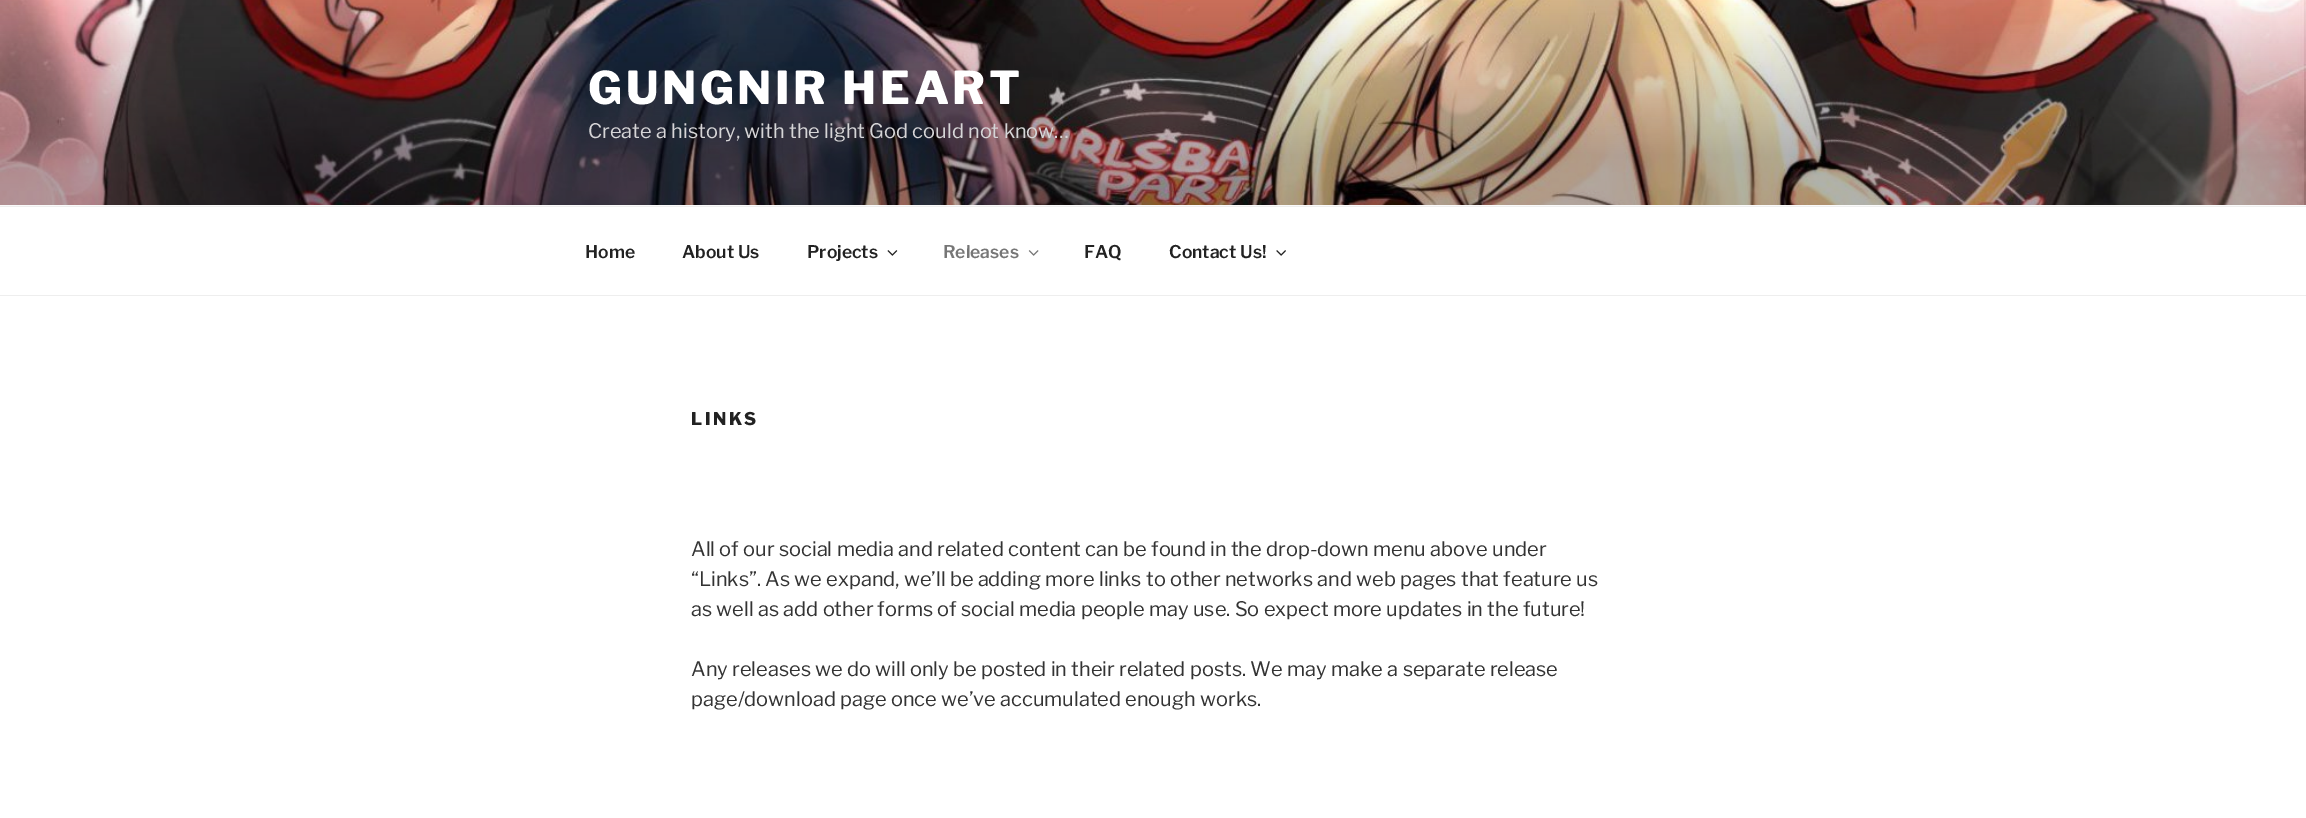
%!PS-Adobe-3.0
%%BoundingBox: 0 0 2306 818
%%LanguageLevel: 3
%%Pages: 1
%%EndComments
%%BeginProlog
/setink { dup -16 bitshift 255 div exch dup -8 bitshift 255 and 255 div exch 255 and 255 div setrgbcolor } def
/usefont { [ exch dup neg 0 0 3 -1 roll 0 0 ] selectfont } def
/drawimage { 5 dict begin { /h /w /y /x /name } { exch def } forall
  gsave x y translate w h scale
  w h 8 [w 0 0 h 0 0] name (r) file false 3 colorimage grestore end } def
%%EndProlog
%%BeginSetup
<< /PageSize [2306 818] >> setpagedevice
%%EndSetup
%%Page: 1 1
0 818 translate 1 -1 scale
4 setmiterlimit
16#FFFFFF setink
0 0 2306 818 rectfill
16#FAFAFA setink
0 205 2306 1 rectfill
(img1.raw) 0 0 2306 205 drawimage
/LibreFranklin-Thin 45 usefont
16#FFFFFF setink
588 104 moveto 3.6 0 (GUNGNIR HEART) ashow
/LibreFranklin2-Thin 20 usefont
16#D6D5D7 setink
588 138 moveto (Create a history, with the light God could not know…) show
16#EEEEEE setink
0 206 2306 1 rectfill
0 295 2306 1 rectfill
/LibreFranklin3-Thin 17.5 usefont
16#222222 setink
[
    [(Home) 585 258]
    [(About Us) 682 258]
    [(Projects) 807 258]
] { aload pop moveto show } forall
(img2.raw) 887 250 11 6 drawimage
16#767676 setink
943 258 moveto (Releases) show
(img3.raw) 1028 250 11 6 drawimage
16#222222 setink
1084 258 moveto (FAQ) show
1169 258 moveto (Contact Us!) show
(img4.raw) 1276 250 10 6 drawimage
/LibreFranklin-Thin 17.5 usefont
691 425 moveto 2.5 0 (LINKS) ashow
/LibreFranklin2-Thin 20 usefont
16#333333 setink
[
    [(All of our social media and related content can be found in the drop-down menu above under) 691 556]
    [(“Links”. As we expand, we’ll be adding more links to other networks and web pages that feature us) 691 586]
    [(as well as add other forms of social media people may use. So expect more updates in the future!) 691 616]
    [(Any releases we do will only be posted in their related posts. We may make a separate release) 691 676]
    [(page/download page once we’ve accumulated enough works.) 691 706]
] { aload pop moveto show } forall
showpage
%%EOF
